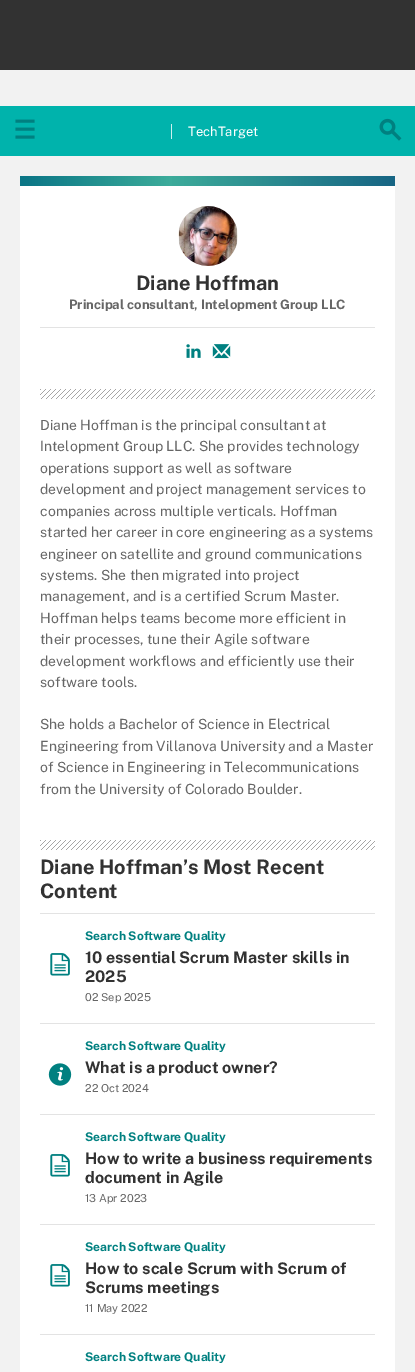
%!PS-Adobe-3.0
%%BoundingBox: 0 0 415 1372
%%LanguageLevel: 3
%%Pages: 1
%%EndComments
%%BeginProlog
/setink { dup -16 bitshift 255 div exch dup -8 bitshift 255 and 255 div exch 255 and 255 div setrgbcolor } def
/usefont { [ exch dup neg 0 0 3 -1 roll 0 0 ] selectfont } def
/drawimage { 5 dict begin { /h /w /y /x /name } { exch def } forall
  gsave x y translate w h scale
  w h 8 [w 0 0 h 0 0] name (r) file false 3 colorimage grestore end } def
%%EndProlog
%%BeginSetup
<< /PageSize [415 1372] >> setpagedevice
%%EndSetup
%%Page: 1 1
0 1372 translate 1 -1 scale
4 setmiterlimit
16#F2F2F2 setink
0 0 415 1372 rectfill
16#323232 setink
0 0 415 70 rectfill
16#00B3AC setink
0 106 415 50 rectfill
(img1.raw) 15 119 20 20 drawimage
16#CEF0EE setink
171 124 1 15 rectfill
/PublicSans-Regular 13 usefont
16#FFFFFF setink
188 136 moveto (TechTarget) show
(img2.raw) 379 118 23 23 drawimage
20 186 375 1186 rectfill
gsave 20 176 moveto 395 176 lineto 395 186 lineto 20 186 lineto closepath clip newpath
<< /ShadingType 2 /ColorSpace /DeviceRGB /Coords [20 181 395 181] /Extend [true true] /Function << /FunctionType 3 /Domain [0 1] /Functions [<< /FunctionType 2 /Domain [0 1] /C0 [0.043 0.463 0.525] /C1 [0.043 0.463 0.525] /N 1 >> << /FunctionType 2 /Domain [0 1] /C0 [0.043 0.463 0.525] /C1 [0.235 0.671 0.604] /N 1 >> << /FunctionType 2 /Domain [0 1] /C0 [0.235 0.671 0.604] /C1 [0.09 0.396 0.518] /N 1 >>] /Bounds [0.01 0.4] /Encode [0 1 0 1 0 1] >> >> shfill grestore
(img3.raw) 178 206 60 60 drawimage
/PublicSans-Bold 20 usefont
16#323232 setink
136 290 moveto (Diane Hoffman) show
/PublicSans-Bold 13 usefont
16#666666 setink
69 309 moveto (Principal consultant, Intelopment Group LLC) show
16#E3E3E3 setink
40 327 335 1 rectfill
(img4.raw) 186 344 15 14 drawimage
(img5.raw) 212 344 19 15 drawimage
(img6.raw) 40 389 335 10 drawimage
/PublicSans-Regular 14 usefont
16#666666 setink
[
    [(Diane Hoffman is the principal consultant at) 40 430]
    [(Intelopment Group LLC. She provides technology) 40 451]
    [(operations support as well as software) 40 473]
    [(development and project management services to) 40 494]
    [(companies across multiple verticals. Hoffman) 40 516]
    [(started her career in core engineering as a systems) 40 537]
    [(engineer on satellite and ground communications) 40 559]
    [(systems. She then migrated into project) 40 580]
    [(management, and is a certified Scrum Master.) 40 601]
    [(Hoffman helps teams become more efficient in) 40 623]
    [(their processes, tune their Agile software) 40 644]
    [(development workflows and efficiently use their) 40 666]
    [(software tools.) 40 687]
    [(She holds a Bachelor of Science in Electrical) 40 729]
    [(Engineering from Villanova University and a Master) 40 751]
    [(of Science in Engineering in Telecommunications) 40 772]
    [(from the University of Colorado Boulder.) 40 794]
] { aload pop moveto show } forall
(img6.raw) 40 840 335 10 drawimage
/PublicSans-Bold 20 usefont
16#323232 setink
40 874 moveto (Diane Hoffman’s Most Recent) show
40 898 moveto (Content) show
16#E3E3E3 setink
40 913 335 1 rectfill
(img7.raw) 50 953 20 23 drawimage
/PublicSans-Bold 12 usefont
16#008080 setink
85 940 moveto (Search Software Quality) show
/PublicSans-Bold 16 usefont
16#323232 setink
85 963 moveto (10 essential Scrum Master skills in) show
85 982 moveto (2025) show
/PublicSans-Regular 11 usefont
16#666666 setink
85 1001 moveto (02 Sep 2025) show
16#E3E3E3 setink
40 1023 335 1 rectfill
(img8.raw) 48 1063 24 23 drawimage
/PublicSans-Bold 12 usefont
16#008080 setink
85 1050 moveto (Search Software Quality) show
/PublicSans-Bold 16 usefont
16#323232 setink
85 1073 moveto (What is a product owner?) show
/PublicSans-Regular 11 usefont
16#666666 setink
85 1092 moveto (22 Oct 2024) show
16#E3E3E3 setink
40 1114 335 1 rectfill
(img7.raw) 50 1154 20 23 drawimage
/PublicSans-Bold 12 usefont
16#008080 setink
85 1141 moveto (Search Software Quality) show
/PublicSans-Bold 16 usefont
16#323232 setink
85 1164 moveto (How to write a business requirements) show
85 1183 moveto (document in Agile) show
/PublicSans-Regular 11 usefont
16#666666 setink
85 1202 moveto (13 Apr 2023) show
16#E3E3E3 setink
40 1224 335 1 rectfill
(img7.raw) 50 1264 20 23 drawimage
/PublicSans-Bold 12 usefont
16#008080 setink
85 1251 moveto (Search Software Quality) show
/PublicSans-Bold 16 usefont
16#323232 setink
85 1274 moveto (How to scale Scrum with Scrum of) show
85 1293 moveto (Scrums meetings) show
/PublicSans-Regular 11 usefont
16#666666 setink
85 1312 moveto (11 May 2022) show
16#E3E3E3 setink
40 1334 335 1 rectfill
/PublicSans-Bold 12 usefont
16#008080 setink
85 1361 moveto (Search Software Quality) show
showpage
%%EOF
